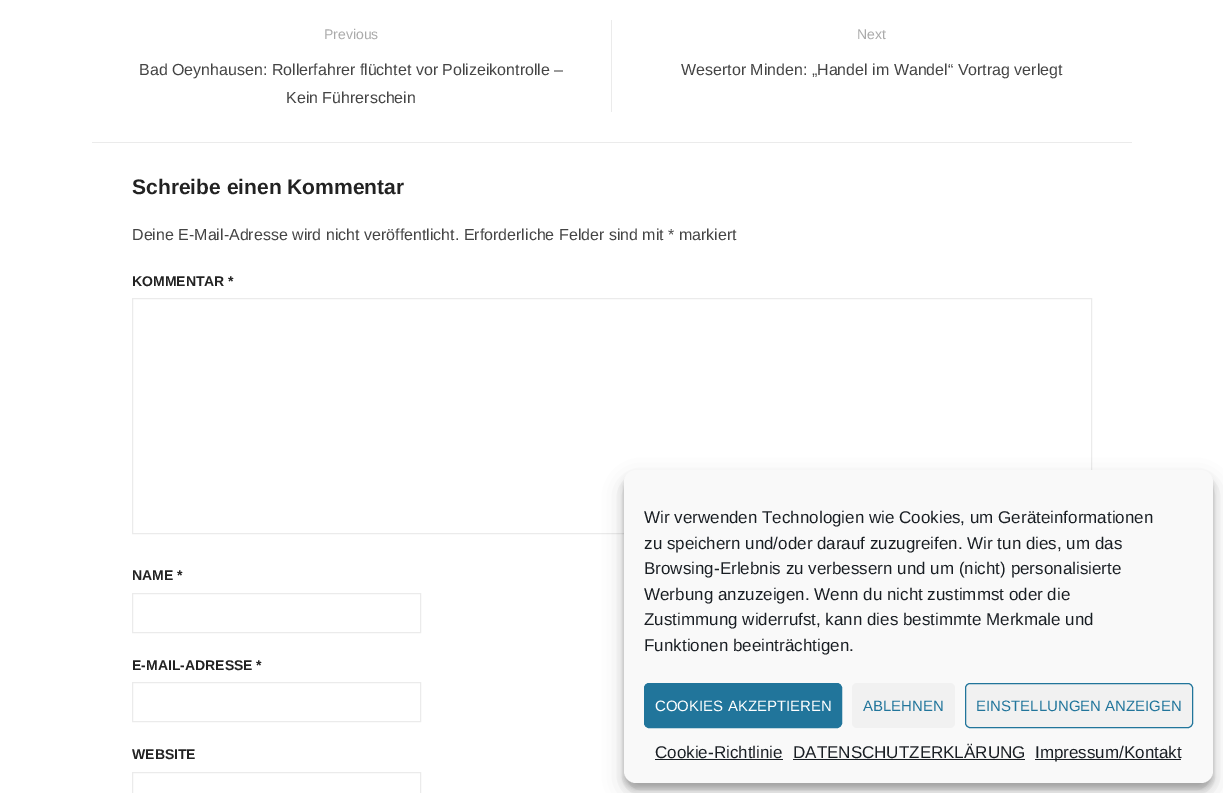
%!PS-Adobe-3.0
%%BoundingBox: 0 0 1223 793
%%LanguageLevel: 3
%%Pages: 1
%%EndComments
%%BeginProlog
/setink { dup -16 bitshift 255 div exch dup -8 bitshift 255 and 255 div exch 255 and 255 div setrgbcolor } def
/usefont { [ exch dup neg 0 0 3 -1 roll 0 0 ] selectfont } def
/setalpha { dup .setfillconstantalpha .setstrokeconstantalpha } def
/rrect { 5 dict begin { /r /h /w /y /x } { exch def } forall
  x r add y moveto x w add y 2 copy h add r arct x w add y h add x 1 index r arct
  x y h add x y r arct x y 2 copy exch w add exch r arct closepath end } def
/softshadow { 12 dict begin { /a /b /q /h /w /y /x } { exch def } forall gsave /was 0 def
  9 -2 -9 { dup b mul 4 div /e exch def 1 sub .425 mul 2.718 exch exp 1 add a .99 .min exch div /now exch def
    1 1 now sub 1 was sub div sub setalpha /was now def
    w h .min e 2 mul add 0 gt { x e sub y e sub w e 2 mul add h e 2 mul add
      q e add b .6 mul add w h .min 2 div e add .min 0 .max rrect fill } if } for grestore end } def
%%EndProlog
%%BeginSetup
<< /PageSize [1223 793] /PageUsesTransparency true >> setpagedevice
%%EndSetup
%%Page: 1 1
0 .pushpdf14devicefilter
0 793 translate 1 -1 scale
4 setmiterlimit
16#FFFFFF setink
0 0 1223 793 rectfill
16#EBEBEB setink
92 142 1040 1 rectfill
611 20 1 92 rectfill
/LiberationSans-Regular 14 usefont
16#AAAAAA setink
324 39 moveto (Previous) show
/LiberationSans-Regular 16 usefont
16#444444 setink
139 75 moveto (Bad Oeynhausen: Rollerfahrer flüchtet vor Polizeikontrolle –) show
286 103 moveto (Kein Führerschein) show
/LiberationSans-Regular 14 usefont
16#AAAAAA setink
857 39 moveto (Next) show
/LiberationSans-Regular 16 usefont
16#444444 setink
681 75 moveto (Wesertor Minden: „Handel im Wandel“ Vortrag verlegt) show
/LiberationSans-Bold 21 usefont
16#222222 setink
132 194 moveto (Schreibe einen Kommentar) show
/LiberationSans-Regular 16 usefont
16#444444 setink
132 240 moveto (Deine E-Mail-Adresse wird nicht veröffentlicht. Erforderliche Felder sind mit * markiert) show
/LiberationSans-Bold 14 usefont
16#222222 setink
132 286 moveto (KOMMENTAR *) show
16#EBEBEB setink
132.5 298.5 959 235 rectstroke
16#222222 setink
132 580 moveto (NAME *) show
16#EBEBEB setink
132.5 593.5 288 39 rectstroke
16#222222 setink
132 670 moveto (E-MAIL-ADRESSE *) show
16#EBEBEB setink
132.5 682.5 288 39 rectstroke
16#222222 setink
132 759 moveto (WEBSITE) show
16#EBEBEB setink
132.5 772.5 288 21 rectstroke
16#000000 setink
624 476 589 313 12 3 0.23 softshadow
624 480 589 313 12 10 0.19 softshadow
16#F9F9F9 setink
624 470 589 313 12 rrect fill
/LiberationSans-Regular 17 usefont
16#191E23 setink
[
    [(Wir verwenden Technologien wie Cookies, um Geräteinformationen) 644 523]
    [(zu speichern und/oder darauf zuzugreifen. Wir tun dies, um das) 644 549]
    [(Browsing-Erlebnis zu verbessern und um \(nicht\) personalisierte) 644 574]
    [(Werbung anzuzeigen. Wenn du nicht zustimmst oder die) 644 600]
    [(Zustimmung widerrufst, kann dies bestimmte Merkmale und) 644 625]
    [(Funktionen beeinträchtigen.) 644 651]
] { aload pop moveto show } forall
16#21759B setink
644.5 683.5 197 44 4.5 rrect gsave fill grestore
stroke
/LiberationSans-Regular 15 usefont
16#FFFFFF setink
655 711 moveto (COOKIES AKZEPTIEREN) show
16#F1F1F1 setink
852 683 103 45 5 rrect fill
16#21759B setink
863 711 moveto (ABLEHNEN) show
16#F1F1F1 setink
965.5 683.5 227 44 4.5 rrect gsave fill grestore
16#21759B setink
stroke
976 711 moveto (EINSTELLUNGEN ANZEIGEN) show
/LiberationSans-Regular 17 usefont
16#191E23 setink
655 758 moveto (Cookie-Richtlinie) show
655 759 128 1 rectfill
793 758 moveto (DATENSCHUTZERKLÄRUNG) show
793 759 232 1 rectfill
1035 759 146 1 rectfill
1035 758 moveto (Impressum/Kontakt) show
.poppdf14devicefilter showpage
%%EOF
